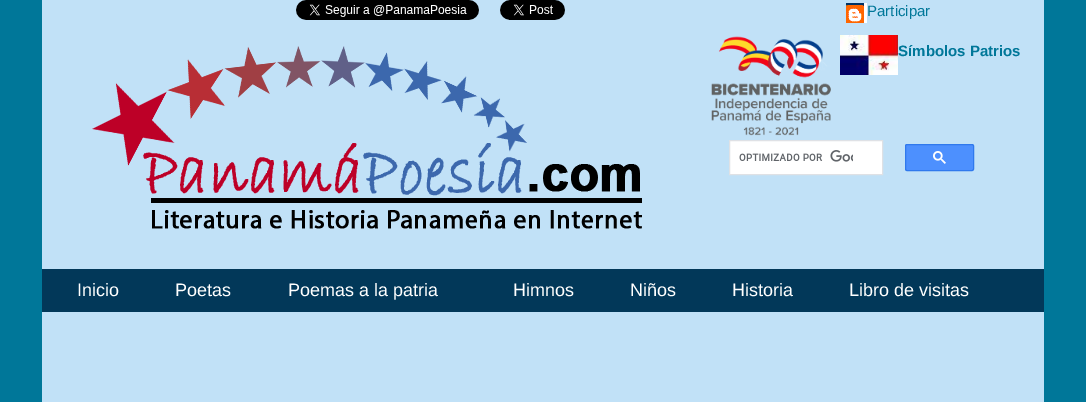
%!PS-Adobe-3.0
%%BoundingBox: 0 0 1086 402
%%LanguageLevel: 3
%%Pages: 1
%%EndComments
%%BeginProlog
/setink { dup -16 bitshift 255 div exch dup -8 bitshift 255 and 255 div exch 255 and 255 div setrgbcolor } def
/usefont { [ exch dup neg 0 0 3 -1 roll 0 0 ] selectfont } def
/rrect { 5 dict begin { /r /h /w /y /x } { exch def } forall
  x r add y moveto x w add y 2 copy h add r arct x w add y h add x 1 index r arct
  x y h add x y r arct x y 2 copy exch w add exch r arct closepath end } def
/drawimage { 5 dict begin { /h /w /y /x /name } { exch def } forall
  gsave x y translate w h scale
  w h 8 [w 0 0 h 0 0] name (r) file false 3 colorimage grestore end } def
%%EndProlog
%%BeginSetup
<< /PageSize [1086 402] >> setpagedevice
%%EndSetup
%%Page: 1 1
0 402 translate 1 -1 scale
4 setmiterlimit
16#007799 setink
0 0 1086 402 rectfill
16#C1E1F7 setink
42 0 1002 402 rectfill
(img1.raw) 296 0 183 20 drawimage
(img2.raw) 500 0 65 20 drawimage
(img3.raw) 846 3 21 20 drawimage
/LiberationSans-Regular 15 usefont
16#007799 setink
867 16 moveto (Participar) show
(img4.raw) 92 46 550 183 drawimage
(img5.raw) 711 36 120 100 drawimage
(img6.raw) 840 35 58 40 drawimage
/LiberationSans-Bold 15 usefont
898 56 moveto (Símbolos Patrios) show
16#FFFFFF setink
729.5 140.5 moveto 882.5 140.5 lineto 882.5 174.5 lineto 729.5 174.5 lineto closepath gsave fill grestore
16#DFE1E5 setink
stroke
(img7.raw) 739 150 114 12 drawimage
16#4D90FE setink
905.5 144.5 68 26 1.5 rrect gsave fill grestore
16#3079ED setink
stroke
(img8.raw) 933 151 13 13 drawimage
16#023859 setink
42 269 1002 43 rectfill
/LiberationSans-Regular 18 usefont
16#FFFFFF setink
[
    [(Inicio) 77 296]
    [(Poetas) 175 296]
    [(Poemas a la patria) 288 296]
    [(Himnos) 513 296]
    [(Niños) 630 296]
    [(Historia) 732 296]
    [(Libro de visitas) 849 296]
] { aload pop moveto show } forall
showpage
%%EOF
